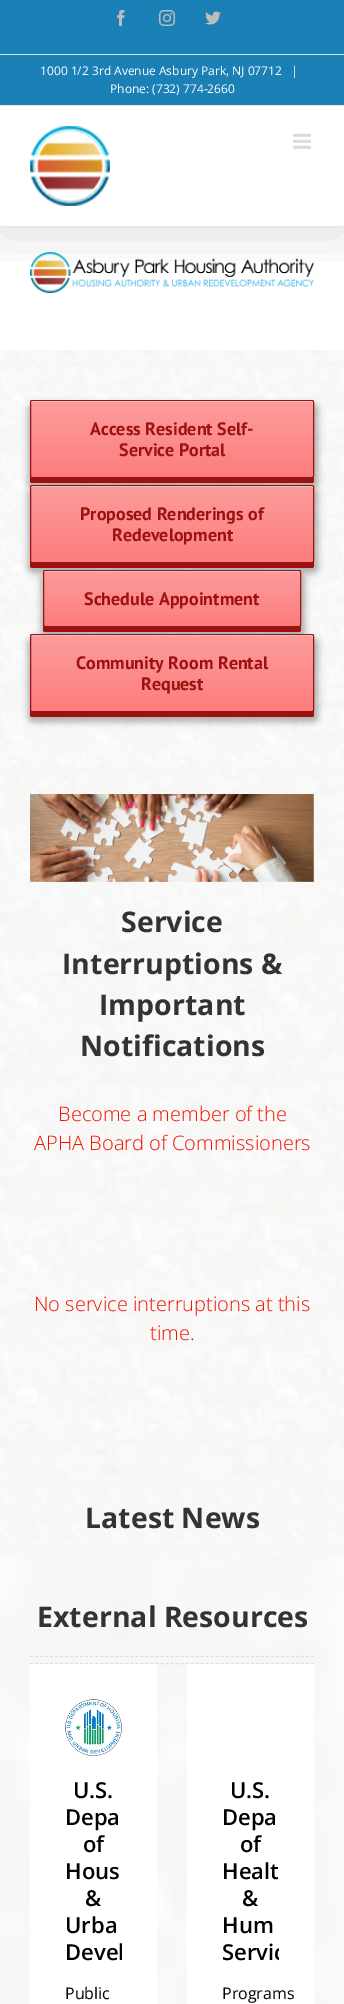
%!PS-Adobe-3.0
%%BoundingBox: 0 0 344 2004
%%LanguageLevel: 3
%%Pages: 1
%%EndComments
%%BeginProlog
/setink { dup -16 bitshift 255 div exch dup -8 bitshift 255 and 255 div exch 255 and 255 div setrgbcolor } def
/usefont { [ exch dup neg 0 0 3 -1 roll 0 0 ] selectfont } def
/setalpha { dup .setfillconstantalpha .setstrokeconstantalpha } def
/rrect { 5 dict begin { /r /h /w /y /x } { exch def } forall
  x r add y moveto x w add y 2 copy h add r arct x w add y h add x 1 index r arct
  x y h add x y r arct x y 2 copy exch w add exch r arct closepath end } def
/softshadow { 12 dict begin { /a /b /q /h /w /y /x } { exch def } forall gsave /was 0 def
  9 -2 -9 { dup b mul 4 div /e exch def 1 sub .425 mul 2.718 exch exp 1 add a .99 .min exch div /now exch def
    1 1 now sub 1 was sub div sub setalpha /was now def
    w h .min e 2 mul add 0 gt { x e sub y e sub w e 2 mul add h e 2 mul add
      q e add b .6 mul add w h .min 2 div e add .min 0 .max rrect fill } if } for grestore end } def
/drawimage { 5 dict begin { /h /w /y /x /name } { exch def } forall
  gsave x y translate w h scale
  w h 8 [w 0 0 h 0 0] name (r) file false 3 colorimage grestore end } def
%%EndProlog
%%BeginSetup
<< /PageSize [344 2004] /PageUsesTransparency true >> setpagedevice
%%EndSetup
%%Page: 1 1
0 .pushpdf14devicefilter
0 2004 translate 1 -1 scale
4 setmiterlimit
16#FFFFFF setink
0 0 344 2004 rectfill
(img6.raw) 30 252 284 41 drawimage
gsave
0 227 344 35 rectclip
16#000000 setink
2 12 340 223 0 25 0.14 softshadow
grestore
[
    [0 0 344 105 16#1A80B6]
    [0 105 344 1 16#E5E5E5]
    [0 54 344 1 16#E5E5E5]
] { aload pop setink rectfill } forall
(img1.raw) 117 10 8 16 drawimage
(img2.raw) 159 10 16 16 drawimage
(img3.raw) 205 11 16 14 drawimage
/OpenSans-Regular 12 usefont
16#FFFFFF setink
[
    [(1000 1/2 3rd Avenue Asbury Park, NJ 07712) 40 75]
    [(|) 291 75]
    [(Phone: \(732\) 774-2660) 110 93]
] { aload pop moveto show } forall
16#E5E5E5 setink
0 226 344 1 rectfill
(img4.raw) 30 126 80 80 drawimage
(img5.raw) 293 133 18 16 drawimage
(img7.raw) 0 350 344 444 drawimage
16#000000 setink
28 404 290 84 5 3.5 0.3 softshadow
16#9D1111 setink
30 476 moveto 30 481 lineto 30 482 31 483 32 483 curveto 312 483 lineto 313 483 314 482 314 481 curveto 314 476 lineto 314 477 313 478 312 478 curveto 32 478 lineto 31 478 30 477 30 476 curveto closepath fill
gsave
30 400 284 78 2 rrect clip newpath
gsave 30 401 moveto 314 401 lineto 314 477 lineto 30 477 lineto closepath clip newpath
<< /ShadingType 2 /ColorSpace /DeviceRGB /Coords [172 477 172 401] /Extend [true true] /Function << /FunctionType 2 /Domain [0 1] /C0 [0.988 0.49 0.49] /C1 [0.992 0.612 0.612] /N 1 >> >> shfill grestore
grestore
16#FFFFFF setink
32 402 moveto 312 402 lineto 313 402 313 402 313 403 curveto 313 402 313 401 312 401 curveto 32 401 lineto 31 401 lineto 31 403 lineto 31 402 31 402 32 402 curveto closepath fill
16#9D1111 setink
30.5 400.5 283 77 1.5 rrect stroke
/PTSans-Bold 18 usefont
90 435 moveto (Access Resident Self-) show
119 456 moveto (Service Portal) show
16#000000 setink
28 489 290 84 5 3.5 0.3 softshadow
16#9D1111 setink
30 561 moveto 30 566 lineto 30 567 31 568 32 568 curveto 312 568 lineto 313 568 314 567 314 566 curveto 314 561 lineto 314 562 313 563 312 563 curveto 32 563 lineto 31 563 30 562 30 561 curveto closepath fill
gsave
30 485 284 78 2 rrect clip newpath
gsave 30 486 moveto 314 486 lineto 314 562 lineto 30 562 lineto closepath clip newpath
<< /ShadingType 2 /ColorSpace /DeviceRGB /Coords [172 562 172 486] /Extend [true true] /Function << /FunctionType 2 /Domain [0 1] /C0 [0.988 0.49 0.49] /C1 [0.992 0.612 0.612] /N 1 >> >> shfill grestore
grestore
16#FFFFFF setink
32 487 moveto 312 487 lineto 313 487 313 487 313 488 curveto 313 487 313 486 312 486 curveto 32 486 lineto 31 486 lineto 31 488 lineto 31 487 31 487 32 487 curveto closepath fill
16#9D1111 setink
30.5 485.5 283 77 1.5 rrect stroke
80 520 moveto (Proposed Renderings of) show
112 541 moveto (Redevelopment) show
16#000000 setink
41 574 264 63 5 3.5 0.3 softshadow
16#9D1111 setink
43 625 moveto 43 630 lineto 43 631 44 632 45 632 curveto 299 632 lineto 300 632 301 631 301 630 curveto 301 625 lineto 301 626 300 627 299 627 curveto 45 627 lineto 44 627 43 626 43 625 curveto closepath fill
gsave
43 570 258 57 2 rrect clip newpath
gsave 43 571 moveto 301 571 lineto 301 626 lineto 43 626 lineto closepath clip newpath
<< /ShadingType 2 /ColorSpace /DeviceRGB /Coords [172 626 172 571] /Extend [true true] /Function << /FunctionType 2 /Domain [0 1] /C0 [0.988 0.49 0.49] /C1 [0.992 0.612 0.612] /N 1 >> >> shfill grestore
grestore
16#FFFFFF setink
45 572 moveto 299 572 lineto 300 572 300 572 300 573 curveto 300 572 300 571 299 571 curveto 44 571 lineto 44 573 lineto 44 572 44 572 45 572 curveto closepath fill
16#9D1111 setink
43.5 570.5 257 56 1.5 rrect stroke
84 605 moveto (Schedule Appointment) show
16#000000 setink
28 638 290 84 5 3.5 0.3 softshadow
16#9D1111 setink
30 710 moveto 30 715 lineto 30 716 31 717 32 717 curveto 312 717 lineto 313 717 314 716 314 715 curveto 314 710 lineto 314 711 313 712 312 712 curveto 32 712 lineto 31 712 30 711 30 710 curveto closepath fill
gsave
30 634 284 78 2 rrect clip newpath
gsave 30 635 moveto 314 635 lineto 314 711 lineto 30 711 lineto closepath clip newpath
<< /ShadingType 2 /ColorSpace /DeviceRGB /Coords [172 711 172 635] /Extend [true true] /Function << /FunctionType 2 /Domain [0 1] /C0 [0.988 0.49 0.49] /C1 [0.992 0.612 0.612] /N 1 >> >> shfill grestore
grestore
16#FFFFFF setink
32 636 moveto 312 636 lineto 313 636 313 636 313 637 curveto 313 636 313 635 312 635 curveto 32 635 lineto 31 635 lineto 31 637 lineto 31 636 31 636 32 636 curveto closepath fill
16#9D1111 setink
30.5 634.5 283 77 1.5 rrect stroke
76 669 moveto (Community Room Rental) show
141 690 moveto (Request) show
(img8.raw) 0 794 344 684 drawimage
(img9.raw) 30 794 284 88 drawimage
/OpenSans-Bold 28.5 usefont
16#333333 setink
[
    [(Service) 121 932]
    [(Interruptions &) 62 974]
    [(Important) 99 1015]
    [(Notifications) 80 1056]
] { aload pop moveto show } forall
/OpenSans-Light 20 usefont
16#F41000 setink
[
    [(Become a member of the) 58 1121]
    [(APHA Board of Commissioners) 34 1150]
    [(No service interruptions at this) 34 1311]
    [(time.) 150 1340]
] { aload pop moveto show } forall
(img10.raw) 0 1478 344 79 drawimage
/OpenSans-Bold 28.5 usefont
16#333333 setink
85 1528 moveto (Latest News) show
(img11.raw) 0 1556 344 448 drawimage
37 1627 moveto (External Resources) show
16#E0DEDE setink
[3 2.02] 0 setdash
30 1656.5 moveto 314 1656.5 lineto stroke
30 1663.5 moveto 314 1663.5 lineto stroke
16#FFFFFF setink
30 1664 127 340 rectfill
(img12.raw) 65 1699 57 57 drawimage
/OpenSans-SemiBold 22 usefont
16#000000 setink
[
    [(U.S.) 73 1798]
    [(Depa) 65 1825]
    [(of) 83 1852]
    [(Hous) 65 1879]
    [(&) 85 1906]
    [(Urba) 65 1933]
] { aload pop moveto show } forall
gsave
65 1699 57 266 rectclip
65 1960 moveto (Devel) show
grestore
/OpenSans-Regular 16 usefont
65 1999 moveto (Public) show
16#FFFFFF setink
187 1664 127 340 rectfill
/OpenSans-SemiBold 22 usefont
16#000000 setink
[
    [(U.S.) 230 1798]
    [(Depa) 222 1825]
    [(of) 240 1852]
    [(Healt) 222 1879]
    [(&) 242 1906]
    [(Hum) 222 1933]
] { aload pop moveto show } forall
gsave
222 1699 57 266 rectclip
222 1960 moveto (Servic) show
grestore
/OpenSans-Regular 16 usefont
222 1999 moveto (Programs) show
.poppdf14devicefilter showpage
%%EOF
